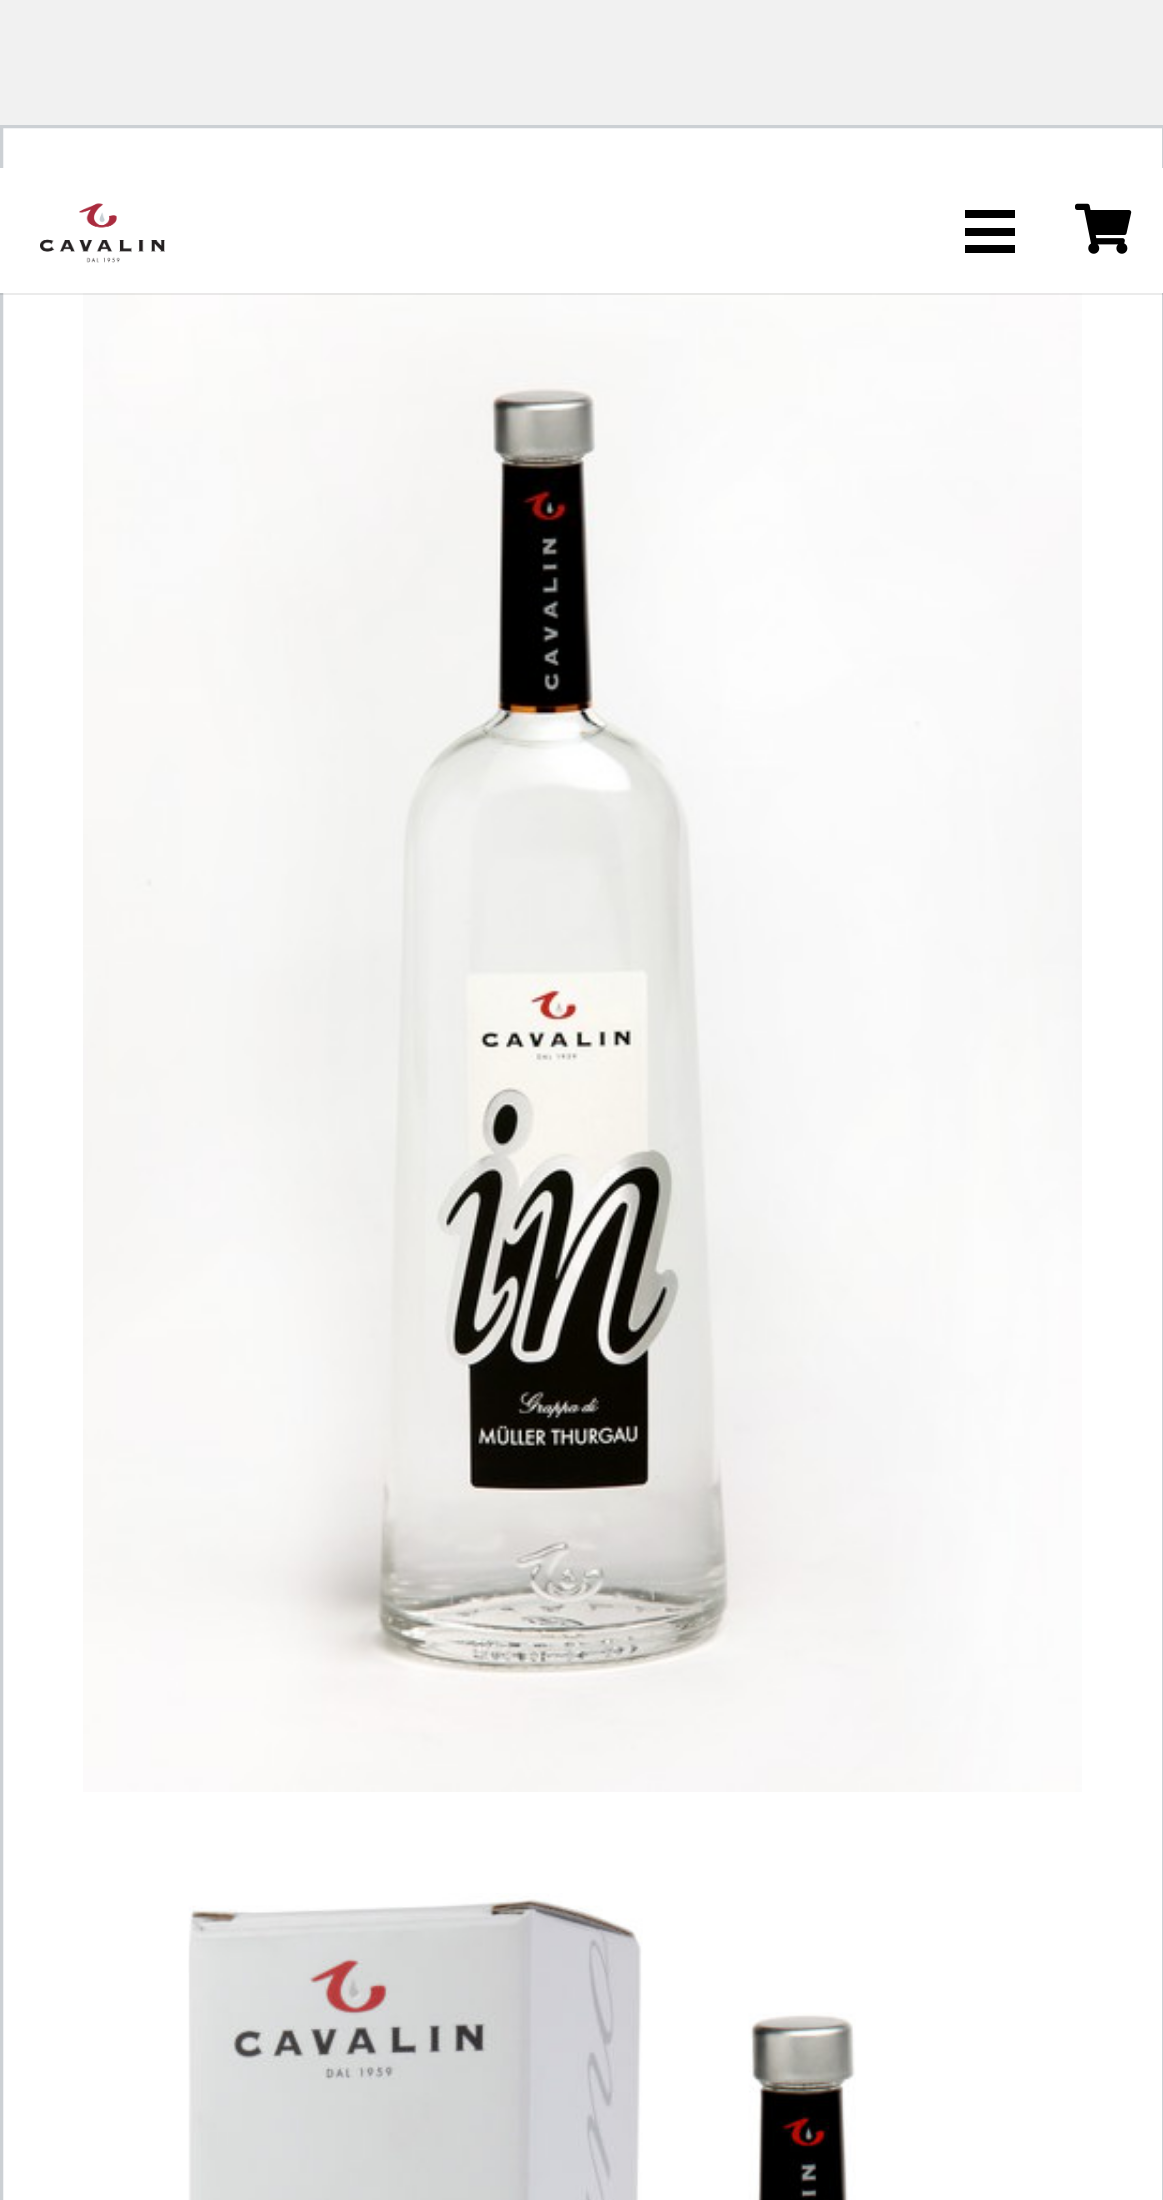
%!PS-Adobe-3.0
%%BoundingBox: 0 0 1163 2200
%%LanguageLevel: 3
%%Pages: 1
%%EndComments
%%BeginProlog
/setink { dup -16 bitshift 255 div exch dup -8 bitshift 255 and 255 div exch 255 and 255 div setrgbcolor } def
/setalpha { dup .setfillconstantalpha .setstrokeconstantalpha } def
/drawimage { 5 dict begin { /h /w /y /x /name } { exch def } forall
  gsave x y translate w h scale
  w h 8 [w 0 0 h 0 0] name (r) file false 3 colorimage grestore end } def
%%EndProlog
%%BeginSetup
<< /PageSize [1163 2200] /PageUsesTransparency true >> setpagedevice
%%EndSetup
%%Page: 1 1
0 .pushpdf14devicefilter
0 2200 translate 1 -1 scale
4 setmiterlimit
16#F1F1F1 setink
0 0 1163 2200 rectfill
16#FFFFFF setink
1.5 126.5 moveto 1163.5 126.5 lineto 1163.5 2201.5 lineto 1.5 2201.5 lineto closepath gsave fill grestore
16#CCD0D4 setink
3 setlinewidth
stroke
(img3.raw) 83 293 999 1499 drawimage
0.08 setalpha
16#000000 setink
0 293 1163 2 rectfill
1 setalpha
16#FFFFFF setink
0 168 1163 125 rectfill
(img1.raw) 40 203 125 60 drawimage
[
    [965 228 50 8 16#000000]
    [965 210 50 8 16#000000]
    [965 245 50 8 16#000000]
] { aload pop setink rectfill } forall
(img2.raw) 1075 203 57 51 drawimage
(img4.raw) 188 1893 668 307 drawimage
.poppdf14devicefilter showpage
%%EOF
